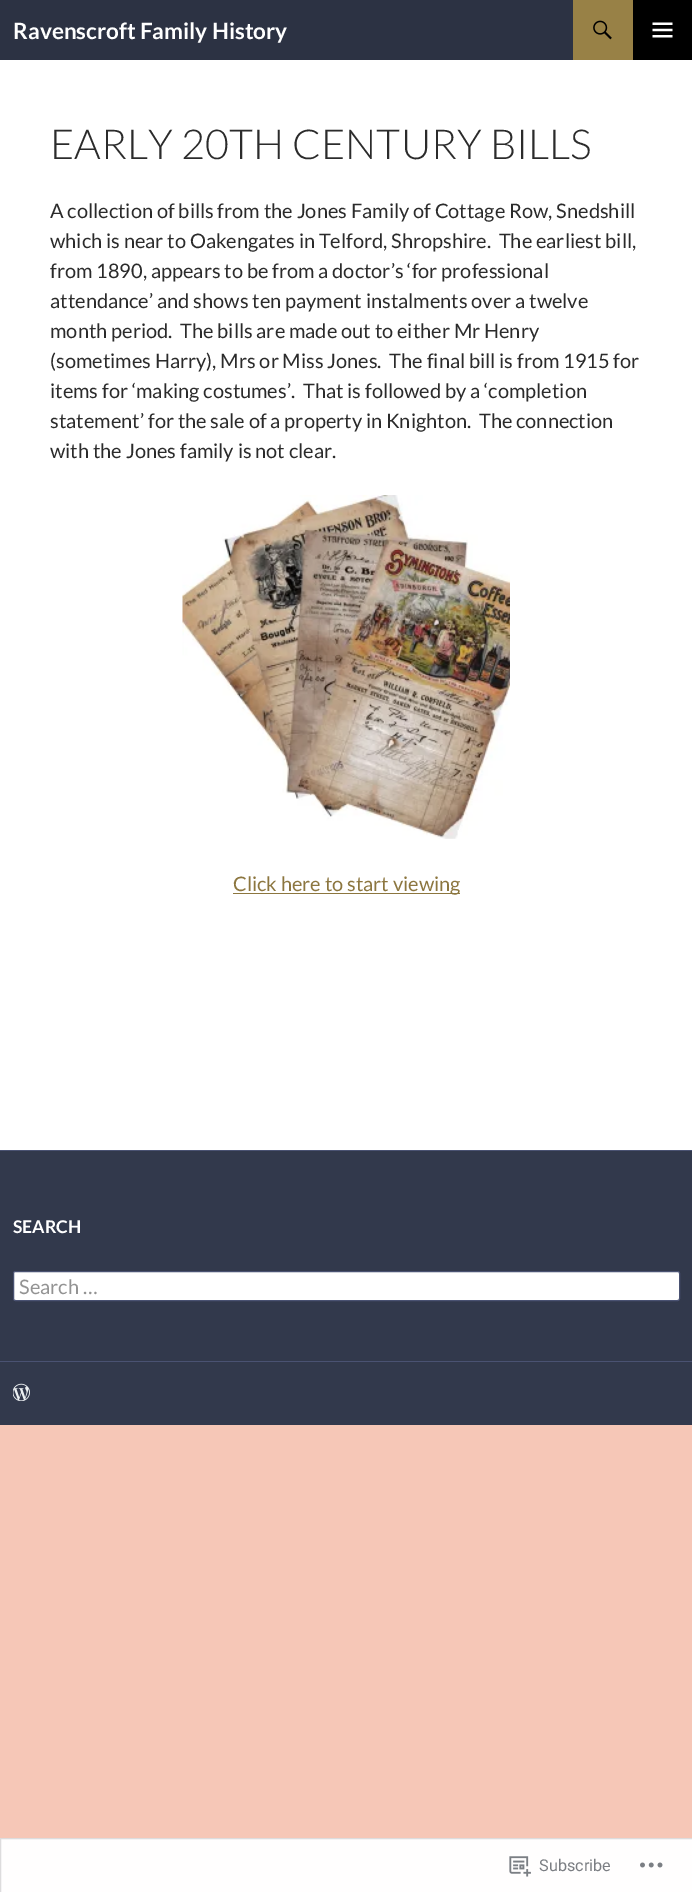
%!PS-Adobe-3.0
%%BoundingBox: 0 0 692 1892
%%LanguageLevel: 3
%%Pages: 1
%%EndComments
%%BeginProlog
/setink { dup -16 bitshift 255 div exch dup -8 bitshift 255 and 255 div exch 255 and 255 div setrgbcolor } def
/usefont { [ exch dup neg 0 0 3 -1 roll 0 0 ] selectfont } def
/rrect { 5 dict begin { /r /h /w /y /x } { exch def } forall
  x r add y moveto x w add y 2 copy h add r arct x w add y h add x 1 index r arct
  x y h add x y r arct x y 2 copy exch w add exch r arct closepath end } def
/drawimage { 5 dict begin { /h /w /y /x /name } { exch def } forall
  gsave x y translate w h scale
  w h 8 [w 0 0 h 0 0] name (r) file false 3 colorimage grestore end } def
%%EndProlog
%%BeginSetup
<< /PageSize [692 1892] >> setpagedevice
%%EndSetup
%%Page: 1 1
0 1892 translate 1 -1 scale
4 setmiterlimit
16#F6C7B7 setink
0 0 692 1892 rectfill
16#FFFFFF setink
0 60 692 1090 rectfill
16#2C3243 setink
0 0 573 60 rectfill
/Lato-Bold 22.5 usefont
16#FFFFFF setink
13 39 moveto (Ravenscroft Family History) show
16#988146 setink
573 0 60 60 rectfill
(img1.raw) 593 20 19 20 drawimage
16#000000 setink
633 0 59 60 rectfill
(img2.raw) 652 22 21 16 drawimage
/Lato-Light 41.25 usefont
16#2B2B2B setink
50 159 moveto (EARLY 20TH CENTURY BILLS) show
/Lato-Regular 20 usefont
[
    [(A collection of bills from the Jones Family of Cottage Row, Snedshill) 50 218]
    [(which is near to Oakengates in Telford, Shropshire.  The earliest bill,) 50 248]
    [(from 1890, appears to be from a doctor’s ‘for professional) 50 278]
    [(attendance’ and shows ten payment instalments over a twelve) 50 308]
    [(month period.  The bills are made out to either Mr Henry) 50 338]
    [(\(sometimes Harry\), Mrs or Miss Jones.  The final bill is from 1915 for) 50 368]
    [(items for ‘making costumes’.  That is followed by a ‘completion) 50 398]
    [(statement’ for the sale of a property in Knighton.  The connection) 50 428]
    [(with the Jones family is not clear.) 50 458]
] { aload pop moveto show } forall
(img3.raw) 182 495 328 344 drawimage
16#8C763F setink
233 893 227 1 rectfill
233 891 moveto (Click here to start viewing) show
[
    [0 1151 692 274 16#32394C]
    [0 1150 692 1 16#4A5272]
    [0 1361 692 1 16#4A5272]
] { aload pop setink rectfill } forall
/Lato-Bold 17.5 usefont
16#FFFFFF setink
13 1233 moveto (SEARCH) show
13.5 1271.5 666 29 2 rrect gsave fill grestore
16#4A5272 setink
stroke
/Lato-Regular 20 usefont
16#939393 setink
19 1294 moveto (Search …) show
(img4.raw) 13 1383 17 18 drawimage
16#FFFEFE setink
0.5 1838.5 moveto 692.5 1838.5 lineto 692.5 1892.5 lineto 0.5 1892.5 lineto closepath gsave fill grestore
16#DDDCDD setink
stroke
(img5.raw) 509 1856 22 21 drawimage
/Roboto-Regular 16.25 usefont
16#7B7E83 setink
539 1871 moveto (Subscribe) show
(img6.raw) 640 1862 23 6 drawimage
showpage
%%EOF
